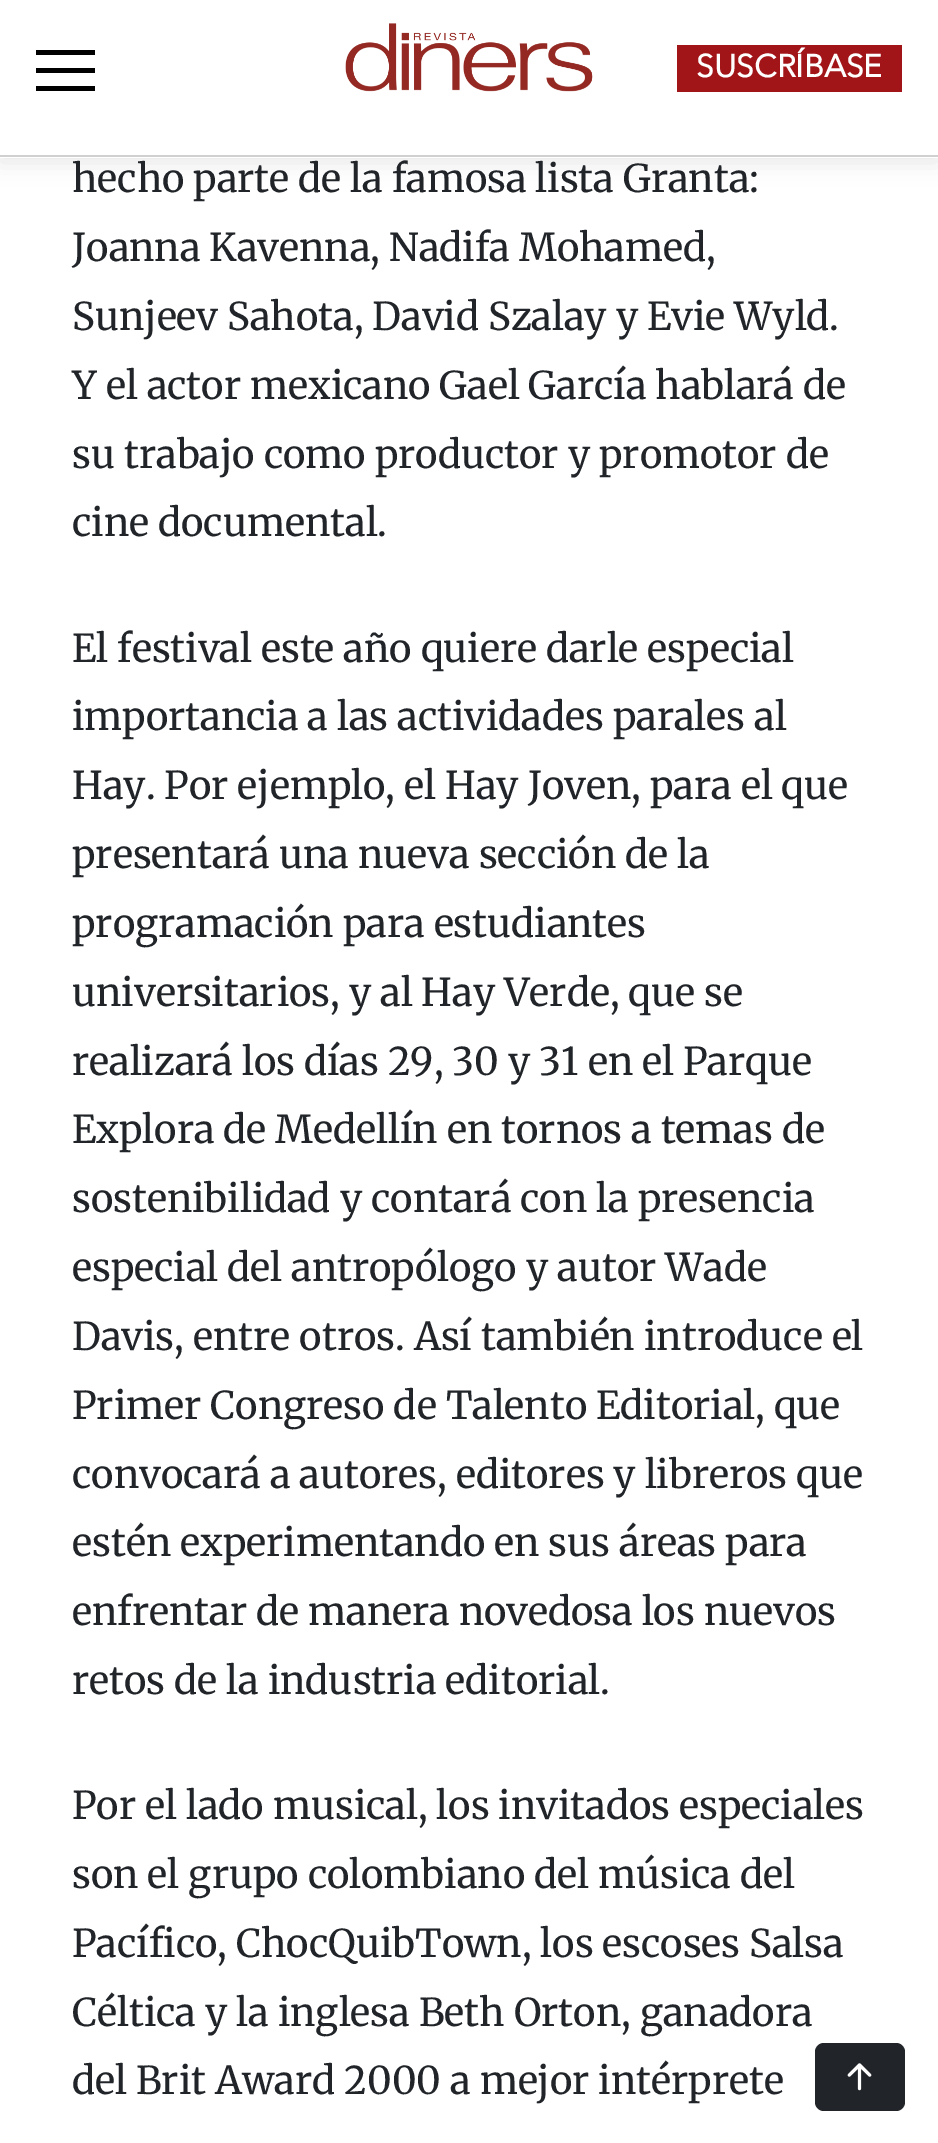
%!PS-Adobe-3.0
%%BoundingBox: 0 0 938 2143
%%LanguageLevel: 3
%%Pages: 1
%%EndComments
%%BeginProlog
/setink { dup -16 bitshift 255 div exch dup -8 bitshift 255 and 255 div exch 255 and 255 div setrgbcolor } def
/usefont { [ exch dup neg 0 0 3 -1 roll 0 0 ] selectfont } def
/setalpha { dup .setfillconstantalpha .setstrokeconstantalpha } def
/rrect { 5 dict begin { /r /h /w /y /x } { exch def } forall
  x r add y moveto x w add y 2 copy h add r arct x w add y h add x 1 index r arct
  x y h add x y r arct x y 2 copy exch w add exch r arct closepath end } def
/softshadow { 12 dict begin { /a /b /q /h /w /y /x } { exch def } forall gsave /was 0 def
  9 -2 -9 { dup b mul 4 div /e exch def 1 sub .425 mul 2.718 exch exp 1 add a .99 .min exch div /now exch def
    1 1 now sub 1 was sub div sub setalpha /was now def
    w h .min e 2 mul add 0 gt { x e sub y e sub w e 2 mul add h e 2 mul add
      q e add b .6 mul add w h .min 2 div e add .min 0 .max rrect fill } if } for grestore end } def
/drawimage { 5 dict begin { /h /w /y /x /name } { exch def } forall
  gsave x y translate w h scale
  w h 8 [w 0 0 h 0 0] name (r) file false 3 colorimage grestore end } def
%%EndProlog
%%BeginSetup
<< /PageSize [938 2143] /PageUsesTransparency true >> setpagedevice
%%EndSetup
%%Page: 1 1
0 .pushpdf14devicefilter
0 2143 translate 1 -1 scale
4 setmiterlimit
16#FFFFFF setink
0 0 938 2143 rectfill
16#000000 setink
0 5 938 157 0 11 0.1 softshadow
[
    [0 0 938 158 16#FFFFFF]
    [0 155 938 2 16#D0D0D0]
    [36 68 59 5 16#000000]
    [36 50 59 5 16#000000]
    [36 86 59 5 16#000000]
] { aload pop setink rectfill } forall
(img1.raw) 345 23 248 69 drawimage
16#A11519 setink
677 45 225 47 rectfill
/AvenirNext-Bold 31.5 usefont
16#FFFFFF setink
696 77 moveto (SUSCRÍBASE) show
/Merriweather-Regular 38.25 usefont
16#212529 setink
[
    [(hecho parte de la famosa lista Granta:) 72 192]
    [(Joanna Kavenna, Nadifa Mohamed,) 72 261]
    [(Sunjeev Sahota, David Szalay y Evie Wyld.) 72 330]
    [(Y el actor mexicano Gael García hablará de) 72 399]
    [(su trabajo como productor y promotor de) 72 468]
    [(cine documental.) 72 536]
    [(El festival este año quiere darle especial) 72 662]
    [(importancia a las actividades parales al) 72 730]
    [(Hay. Por ejemplo, el Hay Joven, para el que) 72 799]
    [(presentará una nueva sección de la) 72 868]
    [(programación para estudiantes) 72 937]
    [(universitarios, y al Hay Verde, que se) 72 1006]
    [(realizará los días 29, 30 y 31 en el Parque) 72 1075]
    [(Explora de Medellín en tornos a temas de) 72 1143]
    [(sostenibilidad y contará con la presencia) 72 1212]
    [(especial del antropólogo y autor Wade) 72 1281]
    [(Davis, entre otros. Así también introduce el) 72 1350]
    [(Primer Congreso de Talento Editorial, que) 72 1419]
    [(convocará a autores, editores y libreros que) 72 1488]
    [(estén experimentando en sus áreas para) 72 1556]
    [(enfrentar de manera novedosa los nuevos) 72 1625]
    [(retos de la industria editorial.) 72 1694]
    [(Por el lado musical, los invitados especiales) 72 1819]
    [(son el grupo colombiano del música del) 72 1888]
    [(Pacífico, ChocQuibTown, los escoses Salsa) 72 1957]
    [(Céltica y la inglesa Beth Orton, ganadora) 72 2026]
    [(del Brit Award 2000 a mejor intérprete) 72 2094]
] { aload pop moveto show } forall
815 2043 90 68 9 rrect fill
(img2.raw) 847 2063 25 28 drawimage
.poppdf14devicefilter showpage
%%EOF
